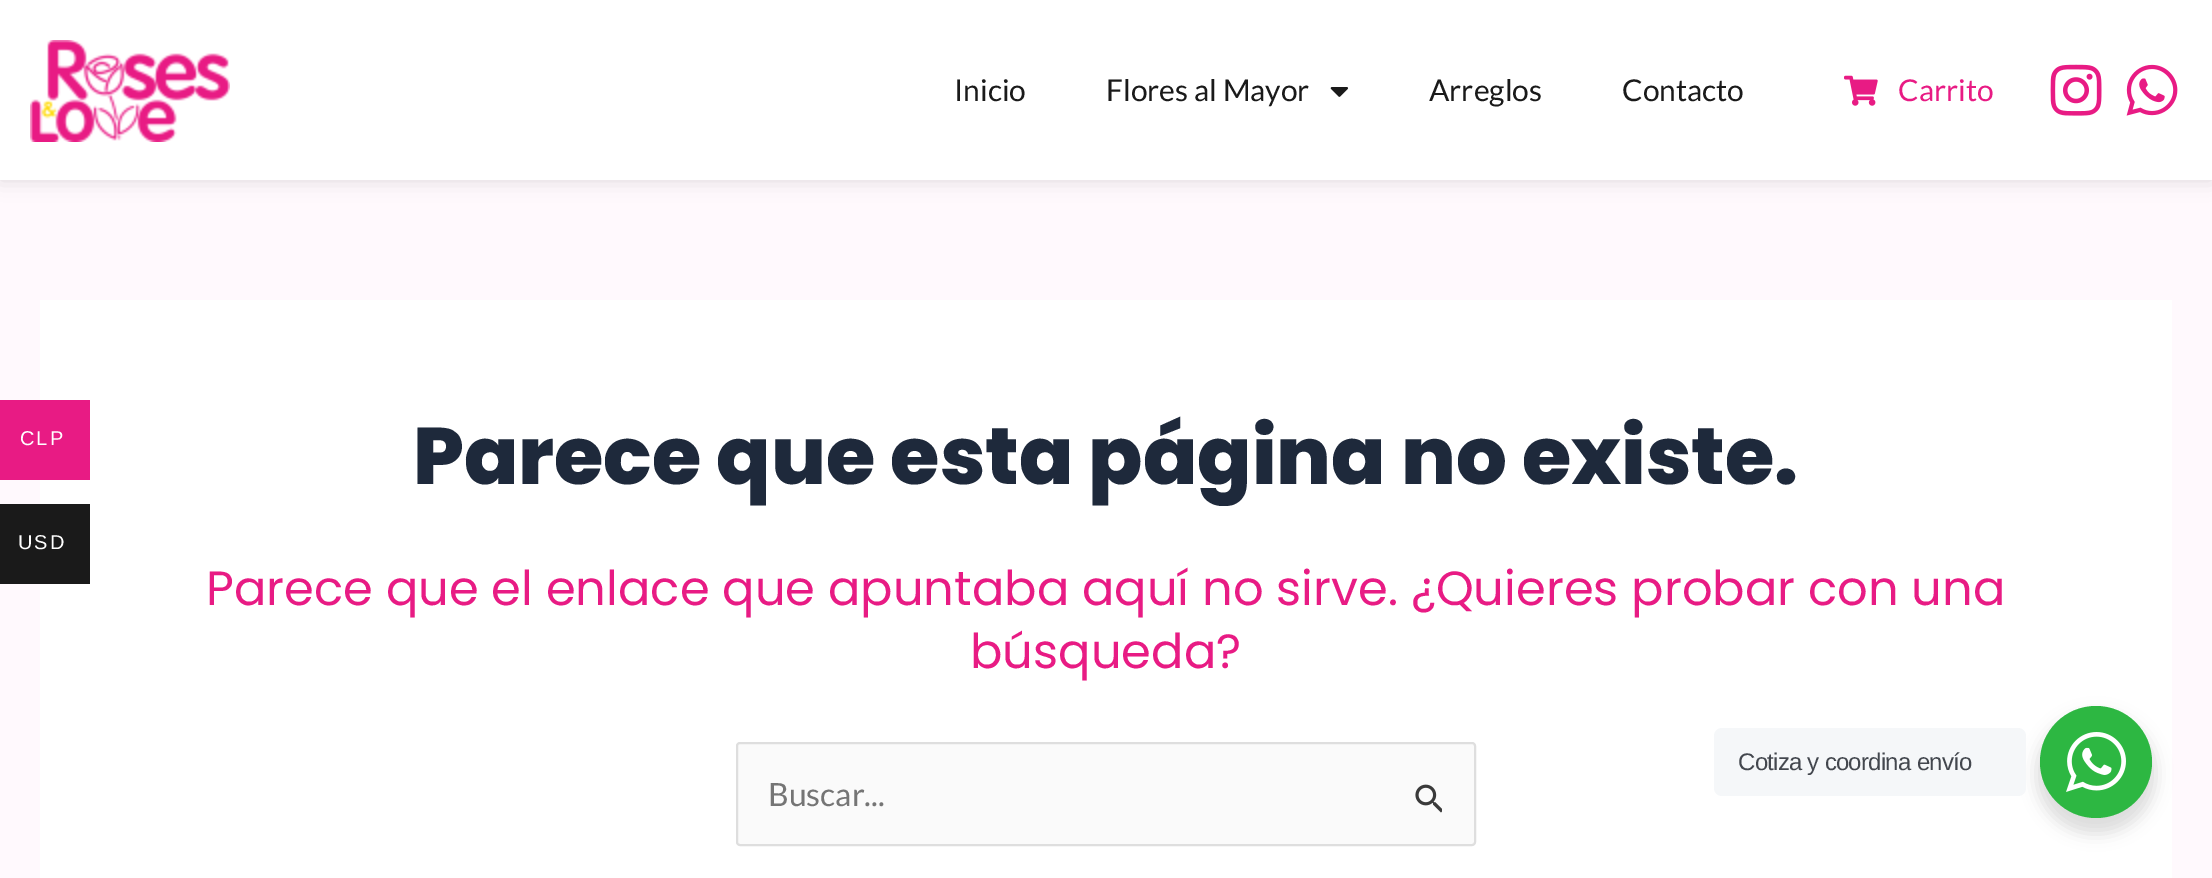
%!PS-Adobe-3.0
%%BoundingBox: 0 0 2212 878
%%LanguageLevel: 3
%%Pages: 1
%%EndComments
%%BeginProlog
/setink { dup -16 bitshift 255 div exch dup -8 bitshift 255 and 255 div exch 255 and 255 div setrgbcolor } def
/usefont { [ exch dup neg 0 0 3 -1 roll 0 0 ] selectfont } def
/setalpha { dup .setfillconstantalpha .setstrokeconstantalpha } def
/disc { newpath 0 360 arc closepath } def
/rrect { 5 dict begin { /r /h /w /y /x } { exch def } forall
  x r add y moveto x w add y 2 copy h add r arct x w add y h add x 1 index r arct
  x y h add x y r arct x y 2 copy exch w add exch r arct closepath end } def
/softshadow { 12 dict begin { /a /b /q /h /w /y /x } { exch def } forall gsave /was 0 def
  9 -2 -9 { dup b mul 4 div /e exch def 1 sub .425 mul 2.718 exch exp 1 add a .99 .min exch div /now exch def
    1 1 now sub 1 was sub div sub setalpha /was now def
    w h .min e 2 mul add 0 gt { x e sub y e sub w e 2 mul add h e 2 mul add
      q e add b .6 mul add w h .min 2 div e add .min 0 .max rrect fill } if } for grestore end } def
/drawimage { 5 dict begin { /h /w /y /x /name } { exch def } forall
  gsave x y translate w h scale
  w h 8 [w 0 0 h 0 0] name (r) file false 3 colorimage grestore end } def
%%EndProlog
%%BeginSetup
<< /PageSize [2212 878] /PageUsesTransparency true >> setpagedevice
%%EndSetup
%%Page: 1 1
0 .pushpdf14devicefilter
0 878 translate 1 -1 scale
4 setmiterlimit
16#FFF9FD setink
0 0 2212 878 rectfill
16#FFFFFF setink
40 300 2132 578 rectfill
16#E81B84 setink
0 400 90 80 rectfill
/LiberationSans-Regular 20 usefont
16#FFFFFF setink
20 445 moveto 2 0 (CLP) ashow
16#1A1A1A setink
0 504 90 80 rectfill
16#FFFFFF setink
18 549 moveto 2 0 (USD) ashow
16#000000 setink
0 0 2212 180 0 10 0.13 softshadow
16#FFFFFF setink
0 0 2212 180 rectfill
(img1.raw) 30 40 200 102 drawimage
/Lato-Regular 30 usefont
16#1A1A1A setink
954 101 moveto (Inicio) show
1106 101 moveto (Flores al Mayor) show
(img2.raw) 1330 87 19 10 drawimage
1429 101 moveto (Arreglos) show
1622 101 moveto (Contacto) show
(img3.raw) 1844 75 34 31 drawimage
16#E81B84 setink
1898 101 moveto (Carrito) show
(img4.raw) 2050 64 52 52 drawimage
(img5.raw) 2126 64 52 52 drawimage
/Poppins-ExtraBold 80 usefont
16#1E293B setink
413 484 moveto (Parece que esta página no existe.) show
/Poppins-Regular 48 usefont
16#E81B84 setink
206 605 moveto (Parece que el enlace que apuntaba aquí no sirve. ¿Quieres probar con una) show
970 668 moveto (búsqueda?) show
16#FAFAFA setink
737 743 738 102 3 rrect gsave fill grestore
16#DEDEDE setink
2 setlinewidth
stroke
/Lato-Regular 32 usefont
16#757575 setink
768 806 moveto (Buscar...) show
(img6.raw) 1415 784 27 29 drawimage
16#000000 setink
2036 714 120 120 60 8 0.14 softshadow
16#F5F7F9 setink
1714 728 312 68 8 rrect fill
/LiberationSans-Regular 24 usefont
16#43474E setink
1738 770 moveto -0.75 0 (Cotiza y coordina envío) ashow
16#2DB742 setink
2096 762 56 disc fill
(img7.raw) 2066 732 60 60 drawimage
.poppdf14devicefilter showpage
%%EOF
